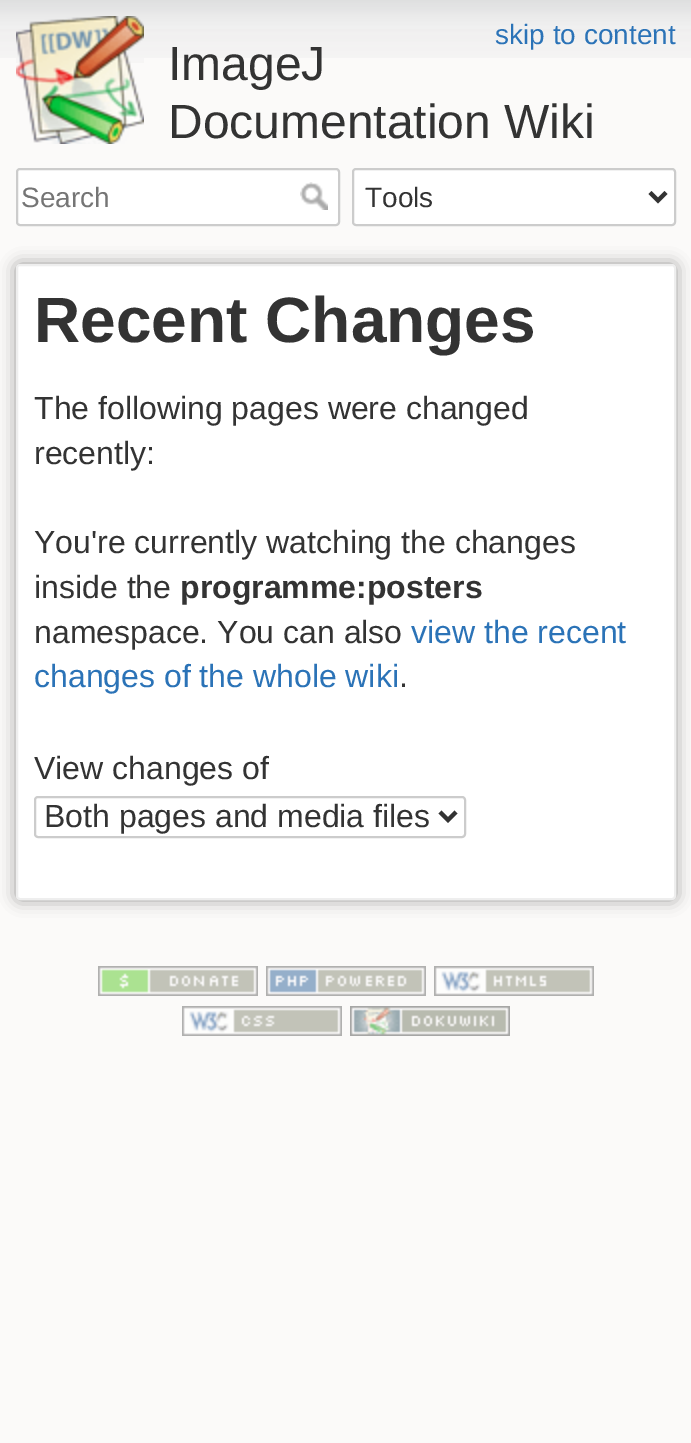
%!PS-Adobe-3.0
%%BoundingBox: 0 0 691 1443
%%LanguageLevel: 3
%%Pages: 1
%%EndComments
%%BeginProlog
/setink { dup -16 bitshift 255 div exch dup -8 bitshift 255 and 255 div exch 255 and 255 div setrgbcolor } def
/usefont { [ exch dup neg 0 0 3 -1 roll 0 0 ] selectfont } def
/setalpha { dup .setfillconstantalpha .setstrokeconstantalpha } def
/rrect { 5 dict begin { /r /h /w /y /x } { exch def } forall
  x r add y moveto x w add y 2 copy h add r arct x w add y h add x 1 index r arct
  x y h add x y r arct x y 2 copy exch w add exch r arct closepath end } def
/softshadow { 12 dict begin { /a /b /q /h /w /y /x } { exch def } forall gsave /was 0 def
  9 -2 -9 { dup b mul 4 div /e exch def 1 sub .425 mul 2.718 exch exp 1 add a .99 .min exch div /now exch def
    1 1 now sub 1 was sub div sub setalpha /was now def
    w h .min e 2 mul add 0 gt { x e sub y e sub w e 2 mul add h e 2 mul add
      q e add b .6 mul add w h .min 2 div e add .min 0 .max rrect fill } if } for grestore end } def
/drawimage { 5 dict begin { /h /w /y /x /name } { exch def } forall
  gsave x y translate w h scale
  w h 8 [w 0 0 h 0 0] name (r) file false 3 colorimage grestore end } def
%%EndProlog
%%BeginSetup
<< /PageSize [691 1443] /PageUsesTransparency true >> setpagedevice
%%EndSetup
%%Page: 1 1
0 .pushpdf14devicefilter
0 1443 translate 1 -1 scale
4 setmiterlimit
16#FBFAF9 setink
0 0 691 1443 rectfill
(img1.raw) 0 0 691 58 drawimage
/LiberationSans-Regular 28 usefont
16#2B73B7 setink
495 44 moveto (skip to content) show
(img2.raw) 16 16 128 128 drawimage
/LiberationSans-Regular 48 usefont
16#333333 setink
168 80 moveto (ImageJ) show
168 138 moveto (Documentation Wiki) show
16#FFFFFF setink
17 169 322 56 3 rrect gsave fill grestore
16#CCCCCC setink
2 setlinewidth
stroke
/LiberationSans-Regular 28 usefont
16#757575 setink
21 207 moveto (Search) show
(img3.raw) 300 182 28 28 drawimage
16#FFFFFF setink
353 169 322 56 3 rrect gsave fill grestore
16#CCCCCC setink
stroke
16#333333 setink
4 setlinewidth
650 192.5 moveto 658 200.5 lineto 666 192.5 lineto stroke
365 207 moveto (Tools) show
16#999999 setink
16 264 660 636 4 8 1 softshadow
16#FFFFFF setink
17 265 658 634 3 rrect gsave fill grestore
16#EEEEEE setink
2 setlinewidth
stroke
/LiberationSans-Bold 64 usefont
16#333333 setink
34 342 moveto (Recent Changes) show
/LiberationSans-Regular 32 usefont
[
    [(The following pages were changed) 34 419]
    [(recently:) 34 464]
    [(You're currently watching the changes) 34 553]
    [(inside the) 34 598]
] { aload pop moveto show } forall
/LiberationSans-Bold 32 usefont
180 598 moveto (programme:posters) show
/LiberationSans-Regular 32 usefont
34 643 moveto (namespace. You can also) show
16#2B73B7 setink
411 643 moveto (view the recent) show
34 687 moveto (changes of the whole wiki) show
16#333333 setink
399 687 moveto (.) show
34 779 moveto (View changes of) show
16#CCCCCC setink
35 797 430 40 3 rrect stroke
16#333333 setink
4 setlinewidth
440 812 moveto 448 820 lineto 456 812 lineto stroke
44 827 moveto (Both pages and media files) show
(img4.raw) 98 966 160 30 drawimage
(img5.raw) 266 966 160 30 drawimage
(img6.raw) 434 966 160 30 drawimage
(img7.raw) 182 1006 160 30 drawimage
(img8.raw) 350 1006 160 30 drawimage
.poppdf14devicefilter showpage
%%EOF
